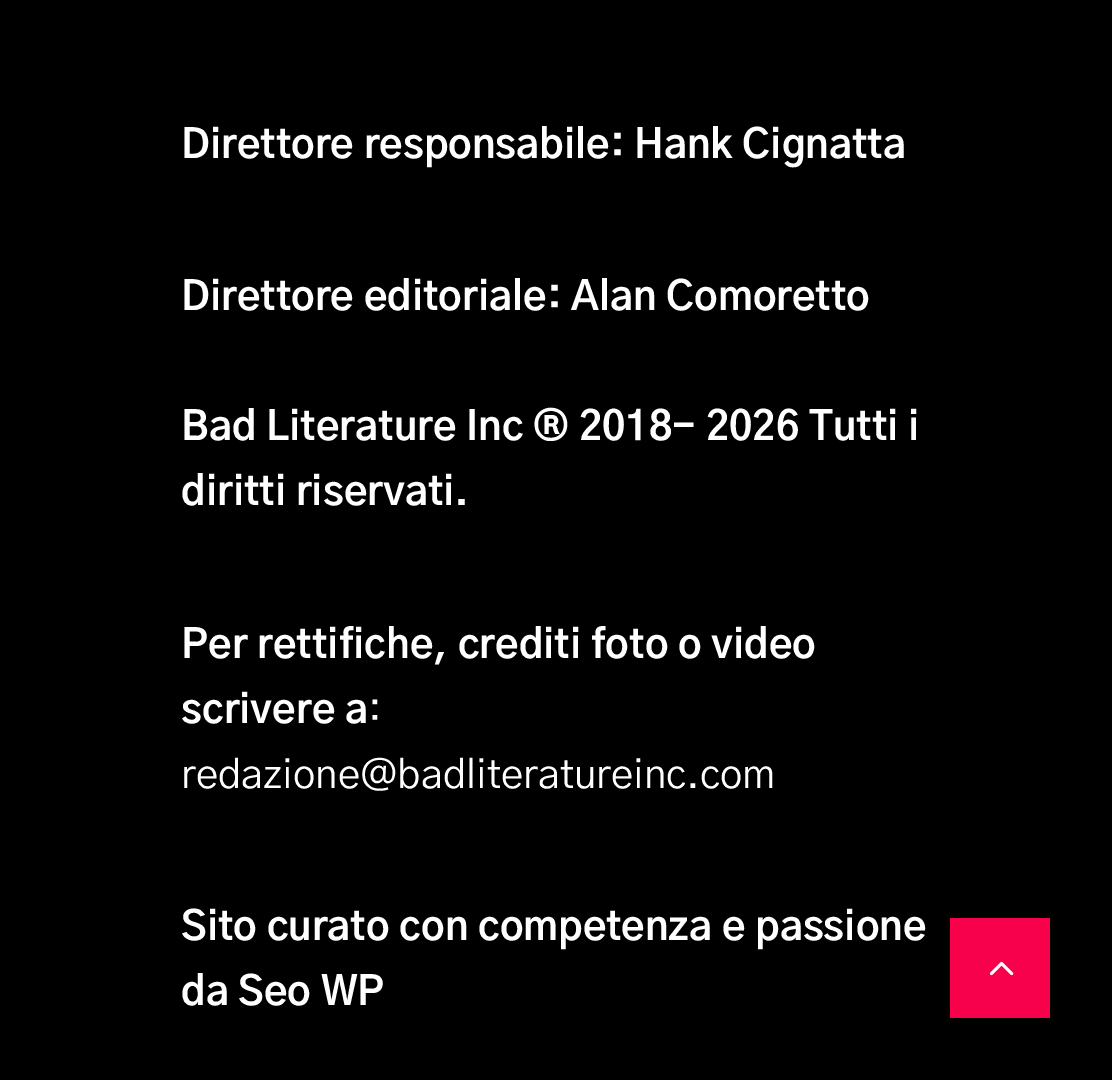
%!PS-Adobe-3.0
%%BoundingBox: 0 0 1112 1080
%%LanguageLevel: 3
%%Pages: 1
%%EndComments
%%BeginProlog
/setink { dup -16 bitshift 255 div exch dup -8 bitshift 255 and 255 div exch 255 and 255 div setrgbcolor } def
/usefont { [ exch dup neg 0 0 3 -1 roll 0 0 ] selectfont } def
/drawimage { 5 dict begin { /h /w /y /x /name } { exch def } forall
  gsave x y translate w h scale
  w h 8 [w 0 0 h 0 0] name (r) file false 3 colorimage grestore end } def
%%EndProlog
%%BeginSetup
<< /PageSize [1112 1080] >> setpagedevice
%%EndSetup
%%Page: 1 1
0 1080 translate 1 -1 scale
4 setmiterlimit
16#000000 setink
0 0 1112 1080 rectfill
/GothicA1-Bold 40 usefont
16#FFFFFF setink
[
    [(Direttore responsabile: Hank Cignatta) 181 158]
    [(Direttore editoriale: Alan Comoretto) 181 310]
    [(Bad Literature Inc ® 2018- 2026 Tutti i) 181 440]
    [(diritti riservati.) 181 505]
    [(Per rettifiche, crediti foto o video) 181 658]
    [(scrivere a) 181 723]
] { aload pop moveto show } forall
/GothicA1-Regular 40 usefont
368 723 moveto (:) show
181 788 moveto (redazione@badliteratureinc.com) show
/GothicA1-Bold 40 usefont
181 940 moveto (Sito curato con competenza e passione) show
181 1005 moveto (da Seo WP) show
16#F8014C setink
950 918 100 100 rectfill
(img1.raw) 989 961 25 15 drawimage
showpage
%%EOF
